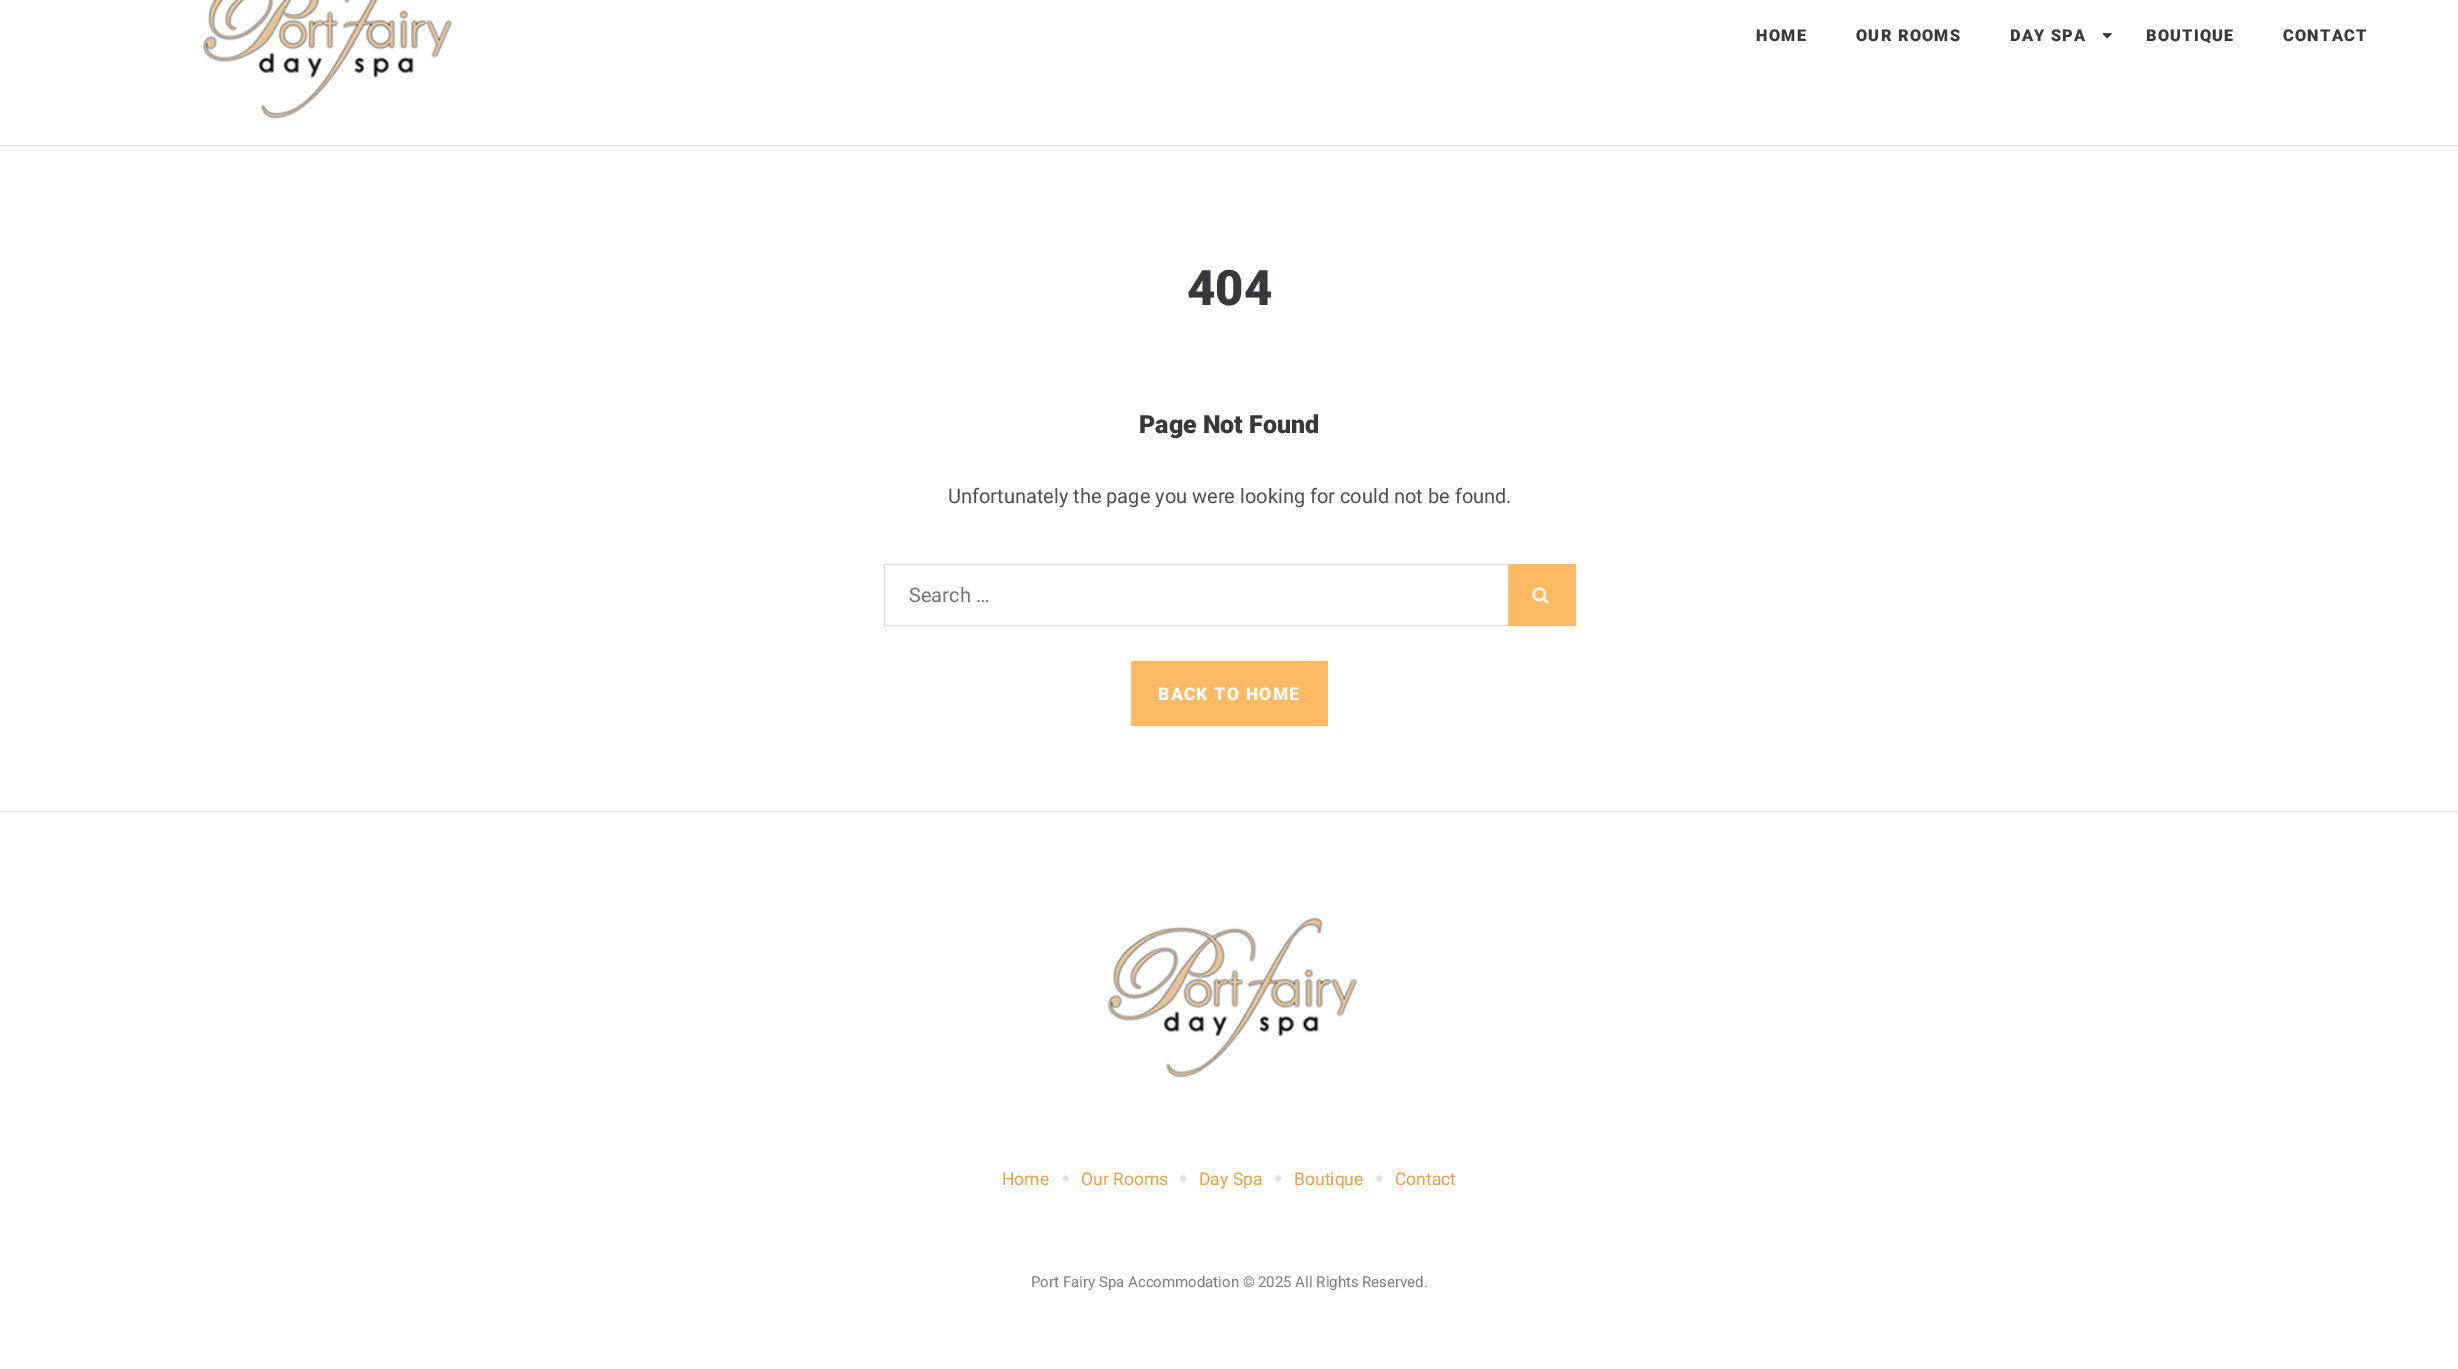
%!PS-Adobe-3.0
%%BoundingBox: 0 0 2458 1369
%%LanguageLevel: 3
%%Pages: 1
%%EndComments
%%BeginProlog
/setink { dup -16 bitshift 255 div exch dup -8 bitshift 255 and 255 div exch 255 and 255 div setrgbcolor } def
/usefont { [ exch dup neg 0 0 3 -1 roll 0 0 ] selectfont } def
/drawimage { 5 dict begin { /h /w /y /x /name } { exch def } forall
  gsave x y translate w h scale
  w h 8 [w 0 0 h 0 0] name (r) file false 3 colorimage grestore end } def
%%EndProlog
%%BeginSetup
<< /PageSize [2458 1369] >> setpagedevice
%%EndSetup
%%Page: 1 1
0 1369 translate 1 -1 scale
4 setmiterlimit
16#FFFFFF setink
0 0 2458 1369 rectfill
16#DDDDDD setink
0 145 2458 1 rectfill
(img1.raw) 202 0 251 119 drawimage
/Roboto-Black 16.25 usefont
16#37383C setink
1756 41 moveto 1.25 0 (HOME) ashow
1856 41 moveto 1.25 0 (OUR ROOMS) ashow
2010 41 moveto 1.25 0 (DAY SPA) ashow
(img2.raw) 2102 33 10 6 drawimage
2146 41 moveto 1.25 0 (BOUTIQUE) ashow
2283 41 moveto 1.25 0 (CONTACT) ashow
/Roboto-Black 49 usefont
1187 305 moveto (404) show
/Roboto-Black 25 usefont
1139 433 moveto (Page Not Found) show
/Roboto-Regular 20 usefont
16#4F4F4F setink
948 503 moveto (Unfortunately the page you were looking for could not be found.) show
16#DDDDDD setink
884.5 564.5 691 61 rectstroke
16#757575 setink
909 602 moveto (Search …) show
16#FFBA63 setink
1508 564 68 62 rectfill
(img3.raw) 1532 587 17 17 drawimage
1131 661 197 65 rectfill
/Roboto-Black 17.5 usefont
16#FFFFFF setink
1158 700 moveto 1.25 0 (BACK TO HOME) ashow
16#DDDDDD setink
0 811 2458 1 rectfill
(img4.raw) 1107 917 251 161 drawimage
/Roboto-Regular 17.5 usefont
16#EA9F41 setink
1002 1185 moveto (Home) show
(img5.raw) 1062 1175 7 7 drawimage
1081 1185 moveto (Our Rooms) show
(img6.raw) 1180 1175 7 7 drawimage
1199 1185 moveto (Day Spa) show
(img6.raw) 1275 1175 7 7 drawimage
1294 1185 moveto (Boutique) show
(img7.raw) 1376 1175 7 7 drawimage
1395 1185 moveto (Contact) show
/Roboto-Regular 15 usefont
16#7E7E7E setink
1031 1287 moveto (Port Fairy Spa Accommodation © 2025 All Rights Reserved.) show
showpage
%%EOF
